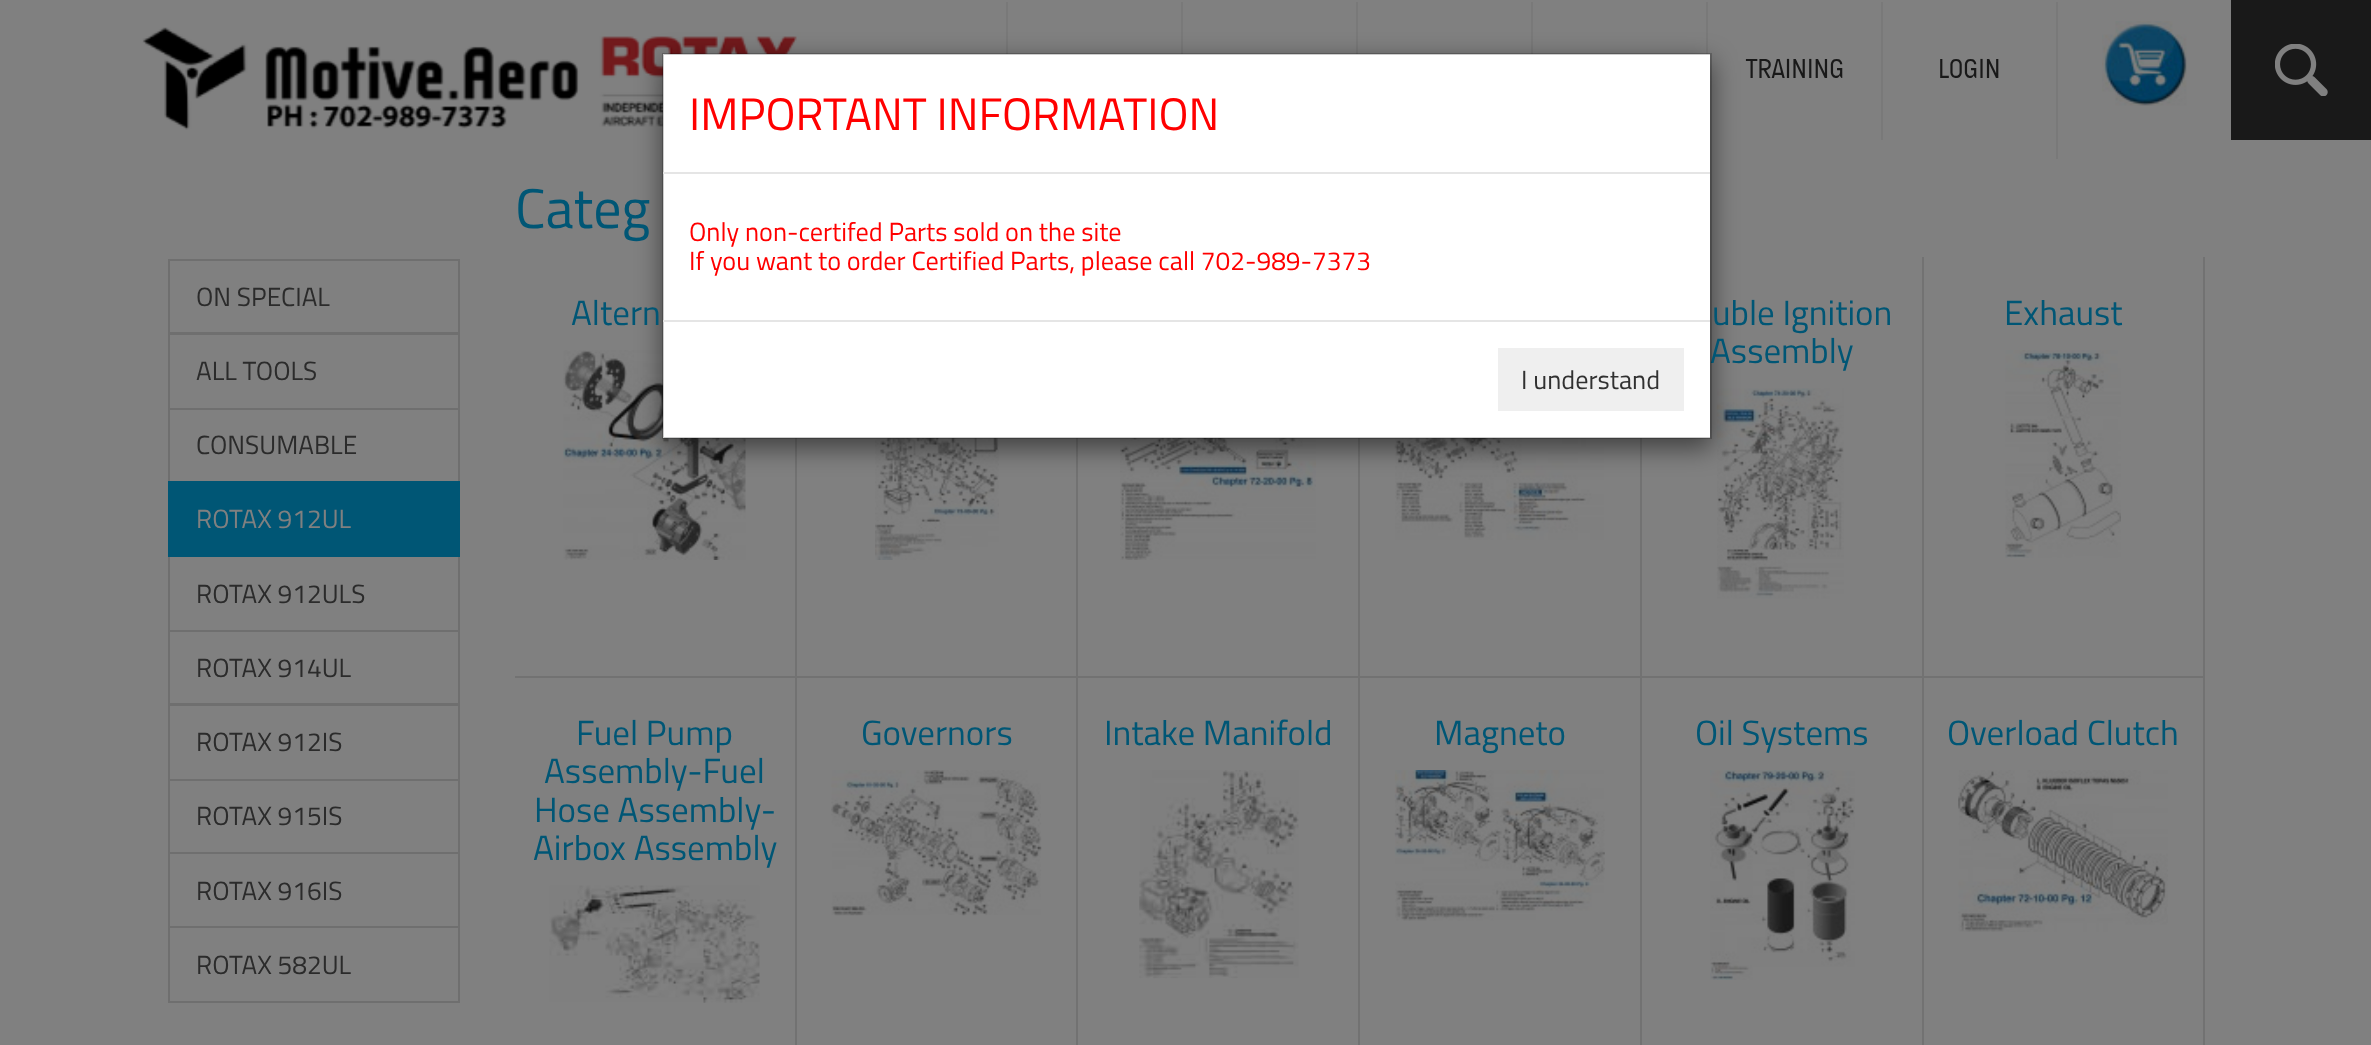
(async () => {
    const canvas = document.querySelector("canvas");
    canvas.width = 2371;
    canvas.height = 1045;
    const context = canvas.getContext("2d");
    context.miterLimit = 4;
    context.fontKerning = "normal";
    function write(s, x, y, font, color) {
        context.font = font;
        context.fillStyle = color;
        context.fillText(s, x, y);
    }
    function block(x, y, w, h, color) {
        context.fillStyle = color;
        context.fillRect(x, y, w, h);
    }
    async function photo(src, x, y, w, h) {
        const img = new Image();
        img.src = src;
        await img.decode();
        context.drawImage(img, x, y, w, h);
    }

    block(0, 0, 2371, 1045, "rgb(128, 128, 128)");
    await photo("media/1.png", 142, 27, 666, 103);
    block(1006, 0, 2, 54, "rgb(121, 121, 121)");
    block(1181, 0, 2, 54, "rgb(121, 121, 121)");
    block(1356, 0, 2, 54, "rgb(121, 121, 121)");
    block(1531, 0, 2, 54, "rgb(121, 121, 121)");
    block(1706, 0, 2, 54, "rgb(121, 121, 121)");
    block(1881, 0, 2, 140, "rgb(121, 121, 121)");
    block(2056, 0, 2, 159, "rgb(121, 121, 121)");
    block(1006, 0, 1052, 2, "rgb(128, 128, 128)");
    block(2231, 0, 140, 140, "rgb(25, 25, 25)");
    await photo("media/2.png", 2275, 44, 53, 52);
    write("TRAINING", 1746, 78, "28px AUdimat", "rgb(25, 25, 25)");
    write("LOGIN", 1938, 78, "28px AUdimat", "rgb(25, 25, 25)");
    await photo("media/3.png", 2102, 21, 85, 85);
    block(795, 438, 2, 239, "rgb(114, 114, 114)");
    await photo("media/4.png", 563, 350, 183, 210);
    await photo("media/5.png", 1716, 388, 128, 211);
    block(1076, 438, 2, 239, "rgb(114, 114, 114)");
    await photo("media/7.png", 875, 438, 124, 122);
    block(1358, 438, 2, 239, "rgb(114, 114, 114)");
    await photo("media/8.png", 1120, 438, 196, 122);
    block(1640, 438, 2, 239, "rgb(114, 114, 114)");
    await photo("media/9.png", 1394, 438, 211, 102);
    context.fillStyle = "rgba(0, 0, 0, 0.5)";
    context.filter = "blur(13px)";
    context.beginPath();
    context.rect(662, 61, 1050, 387);
    context.fill();
    context.filter = "none";
    block(663, 54, 1047, 384, "rgb(255, 255, 255)");
    write("Assembly", 1710, 363, "35px Titillium Web", "rgb(0, 86, 117)");
    context.strokeStyle = "rgba(0, 0, 0, 0.2)";
    context.lineWidth = 2;
    context.strokeRect(663, 54, 1048, 384);
    block(663, 172, 1047, 2, "rgb(229, 229, 229)");
    write("IMPORTANT INFORMATION", 689, 130, "45.5px Titillium Web", "rgb(255, 0, 0)");
    write("Only non-certifed Parts sold on the site", 689, 241, "26.25px Titillium Web", "rgb(255, 0, 0)");
    write("If you want to order Certified Parts, please call 702-989-7373", 689, 270, "26.25px Titillium Web", "rgb(255, 0, 0)");
    block(663, 320, 1047, 2, "rgb(229, 229, 229)");
    block(1498, 348, 186, 63, "rgb(239, 239, 239)");
    write("I understand", 1521, 389, "26.25px Titillium Web", "rgb(49, 49, 49)");
    write("Categ", 515, 228, "56px Titillium Web", "rgb(0, 86, 117)");
    context.strokeStyle = "rgb(111, 111, 111)";
    context.strokeRect(169, 260, 290, 73);
    write("ON SPECIAL", 196, 306, "26.25px Titillium Web", "rgb(43, 43, 43)");
    context.strokeRect(169, 334, 290, 75);
    write("ALL TOOLS", 196, 380, "26.25px Titillium Web", "rgb(43, 43, 43)");
    context.strokeRect(169, 409, 290, 73);
    write("CONSUMABLE", 196, 454, "26.25px Titillium Web", "rgb(43, 43, 43)");
    context.strokeRect(169, 556, 290, 75);
    block(168, 481, 292, 76, "rgb(0, 86, 117)");
    write("ROTAX 912UL", 196, 528, "26.25px Titillium Web", "rgb(128, 128, 128)");
    write("ROTAX 912ULS", 196, 603, "26.25px Titillium Web", "rgb(43, 43, 43)");
    context.strokeRect(169, 631, 290, 73);
    write("ROTAX 914UL", 196, 677, "26.25px Titillium Web", "rgb(43, 43, 43)");
    context.strokeRect(169, 705, 290, 75);
    write("ROTAX 912IS", 196, 751, "26.25px Titillium Web", "rgb(43, 43, 43)");
    context.strokeRect(169, 780, 290, 73);
    write("ROTAX 915IS", 196, 825, "26.25px Titillium Web", "rgb(43, 43, 43)");
    context.strokeRect(169, 853, 290, 74);
    write("ROTAX 916IS", 196, 900, "26.25px Titillium Web", "rgb(43, 43, 43)");
    context.strokeRect(169, 927, 290, 75);
    write("ROTAX 582UL", 196, 974, "26.25px Titillium Web", "rgb(43, 43, 43)");
    block(515, 676, 281, 2, "rgb(114, 114, 114)");
    write("Altern", 571, 325, "35px Titillium Web", "rgb(0, 86, 117)");
    block(1922, 257, 2, 420, "rgb(114, 114, 114)");
    block(1642, 676, 281, 2, "rgb(114, 114, 114)");
    write("uble Ignition", 1712, 325, "35px Titillium Web", "rgb(0, 86, 117)");
    block(2203, 257, 2, 420, "rgb(114, 114, 114)");
    block(1923, 676, 282, 2, "rgb(114, 114, 114)");
    write("Exhaust", 2004, 325, "35px Titillium Web", "rgb(0, 86, 117)");
    await photo("media/6.png", 2005, 350, 116, 208);
    block(796, 676, 282, 2, "rgb(114, 114, 114)");
    block(1078, 676, 282, 2, "rgb(114, 114, 114)");
    block(1360, 676, 282, 2, "rgb(114, 114, 114)");
    block(795, 677, 2, 368, "rgb(114, 114, 114)");
    write("Fuel Pump", 576, 745, "35px Titillium Web", "rgb(0, 86, 117)");
    write("Assembly-Fuel", 544, 783, "35px Titillium Web", "rgb(0, 86, 117)");
    write("Hose Assembly-", 534, 822, "35px Titillium Web", "rgb(0, 86, 117)");
    write("Airbox Assembly", 533, 860, "35px Titillium Web", "rgb(0, 86, 117)");
    await photo("media/10.png", 549, 885, 211, 118);
    block(1076, 677, 2, 368, "rgb(114, 114, 114)");
    write("Governors", 861, 745, "35px Titillium Web", "rgb(0, 86, 117)");
    await photo("media/11.png", 831, 770, 211, 146);
    block(1358, 677, 2, 368, "rgb(114, 114, 114)");
    write("Intake Manifold", 1104, 745, "35px Titillium Web", "rgb(0, 86, 117)");
    await photo("media/12.png", 1139, 770, 160, 209);
    block(1640, 677, 2, 368, "rgb(114, 114, 114)");
    write("Magneto", 1434, 745, "35px Titillium Web", "rgb(0, 86, 117)");
    await photo("media/13.png", 1394, 770, 211, 151);
    block(1922, 677, 2, 368, "rgb(114, 114, 114)");
    write("Oil Systems", 1695, 745, "35px Titillium Web", "rgb(0, 86, 117)");
    await photo("media/14.png", 1710, 770, 145, 210);
    block(2203, 677, 2, 368, "rgb(114, 114, 114)");
    write("Overload Clutch", 1947, 745, "35px Titillium Web", "rgb(0, 86, 117)");
    await photo("media/15.png", 1958, 770, 210, 162);
})();
